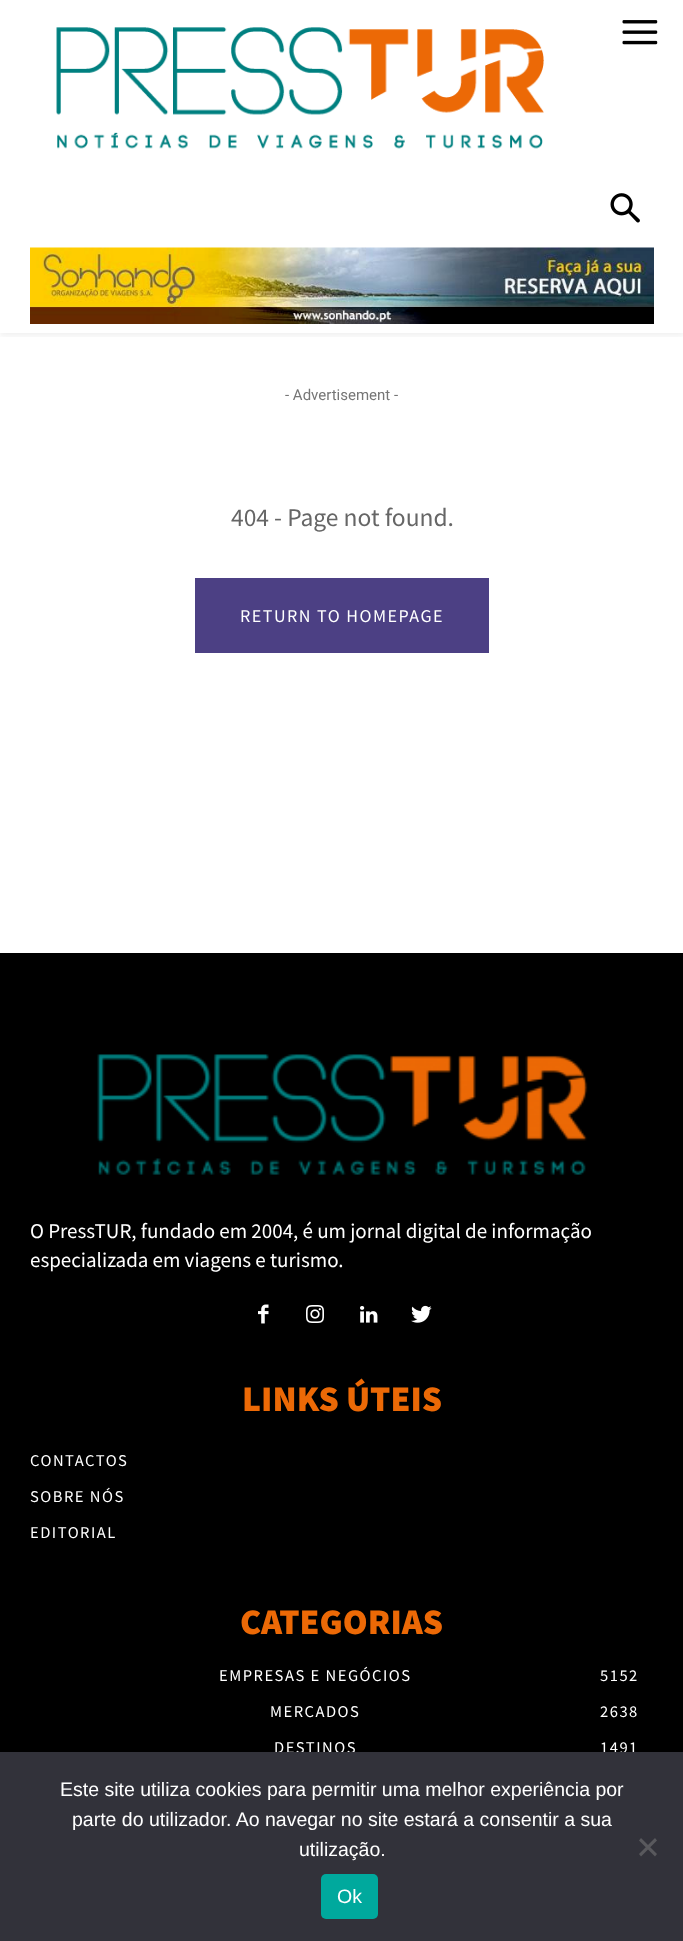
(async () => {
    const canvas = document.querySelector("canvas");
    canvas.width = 683;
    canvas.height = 1941;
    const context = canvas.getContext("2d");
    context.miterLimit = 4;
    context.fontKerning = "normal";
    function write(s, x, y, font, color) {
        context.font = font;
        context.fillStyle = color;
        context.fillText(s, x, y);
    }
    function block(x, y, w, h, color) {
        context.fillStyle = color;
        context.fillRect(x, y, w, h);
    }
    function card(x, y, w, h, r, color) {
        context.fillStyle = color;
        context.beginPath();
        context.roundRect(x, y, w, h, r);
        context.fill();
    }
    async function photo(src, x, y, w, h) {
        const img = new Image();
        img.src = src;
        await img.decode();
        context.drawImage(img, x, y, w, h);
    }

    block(0, 0, 683, 1941, "rgb(255, 255, 255)");
    await photo("media/1.png", 56, 27, 488, 122);
    await photo("media/2.png", 622, 20, 36, 25);
    await photo("media/3.png", 610, 193, 30, 30);
    await photo("media/4.png", 30, 247, 624, 77);
    context.save();
    context.beginPath();
    context.rect(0, 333, 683, 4);
    context.clip();
    context.fillStyle = "rgba(0, 0, 0, 0.06)";
    context.filter = "blur(3px)";
    context.beginPath();
    context.rect(0, 3, 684, 333);
    context.fill();
    context.filter = "none";
    context.restore();
    write("- Advertisement -", 285, 400, "15px Roboto", "rgb(118, 118, 118)");
    write("404 - Page not found.", 231, 526, "25.5px Source Sans Pro", "rgb(102, 102, 102)");
    block(195, 578, 294, 75, "rgb(76, 64, 132)");
    context.letterSpacing = "1.5px";
    write("RETURN TO HOMEPAGE", 240, 622, "18px Source Sans Pro", "rgb(255, 255, 255)");
    block(0, 953, 683, 799, "rgb(0, 0, 0)");
    await photo("media/5.png", 97, 1054, 491, 121);
    context.letterSpacing = "0px";
    write("O PressTUR, fundado em 2004, é um jornal digital de informação", 30, 1238, "21px Source Sans Pro", "rgb(255, 255, 255)");
    write("especializada em viagens e turismo.", 30, 1267, "21px Source Sans Pro", "rgb(255, 255, 255)");
    await photo("media/6.png", 258, 1304, 11, 20);
    await photo("media/7.png", 306, 1305, 18, 18);
    await photo("media/8.png", 360, 1306, 18, 17);
    await photo("media/9.png", 411, 1305, 21, 18);
    write("LINKS ÚTEIS", 242, 1411, "900 36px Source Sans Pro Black", "rgb(236, 105, 6)");
    context.letterSpacing = "1.5px";
    write("CONTACTOS", 30, 1466, "16.5px Source Sans Pro", "rgb(255, 255, 255)");
    write("SOBRE NÓS", 30, 1502, "16.5px Source Sans Pro", "rgb(255, 255, 255)");
    write("EDITORIAL", 30, 1538, "16.5px Source Sans Pro", "rgb(255, 255, 255)");
    context.letterSpacing = "0px";
    write("CATEGORIAS", 240, 1634, "900 36px Source Sans Pro Black", "rgb(236, 105, 6)");
    context.letterSpacing = "1.5px";
    write("EMPRESAS E NEGÓCIOS", 219, 1681, "16.5px Source Sans Pro", "rgb(255, 255, 255)");
    write("5152", 600, 1681, "16.5px Source Sans Pro", "rgb(255, 255, 255)");
    write("MERCADOS", 270, 1717, "16.5px Source Sans Pro", "rgb(255, 255, 255)");
    write("2638", 600, 1717, "16.5px Source Sans Pro", "rgb(255, 255, 255)");
    write("DESTINOS", 274, 1753, "16.5px Source Sans Pro", "rgb(255, 255, 255)");
    write("1491", 600, 1753, "16.5px Source Sans Pro", "rgb(255, 255, 255)");
    block(0, 1752, 683, 189, "rgb(50, 50, 58)");
    context.letterSpacing = "0px";
    write("Este site utiliza cookies para permitir uma melhor experiência por", 60, 1796, "19.5px Liberation Sans", "rgb(255, 255, 255)");
    write("parte do utilizador. Ao navegar no site estará a consentir a sua", 72, 1826, "19.5px Liberation Sans", "rgb(255, 255, 255)");
    write("utilização.", 299, 1856, "19.5px Liberation Sans", "rgb(255, 255, 255)");
    context.fillStyle = "rgb(89, 89, 93)";
    context.beginPath();
    context.moveTo(655, 1838);
    context.lineTo(657, 1840.5);
    context.lineTo(641, 1856.5);
    context.lineTo(639, 1854);
    context.closePath();
    context.fill();
    context.beginPath();
    context.moveTo(639, 1840.5);
    context.lineTo(641, 1838);
    context.lineTo(657, 1854);
    context.lineTo(655, 1856.5);
    context.closePath();
    context.fill();
    card(321, 1874, 57, 45, 5, "rgb(0, 169, 157)");
    write("Ok", 337, 1903, "19.5px Liberation Sans", "rgb(255, 255, 255)");
})();
